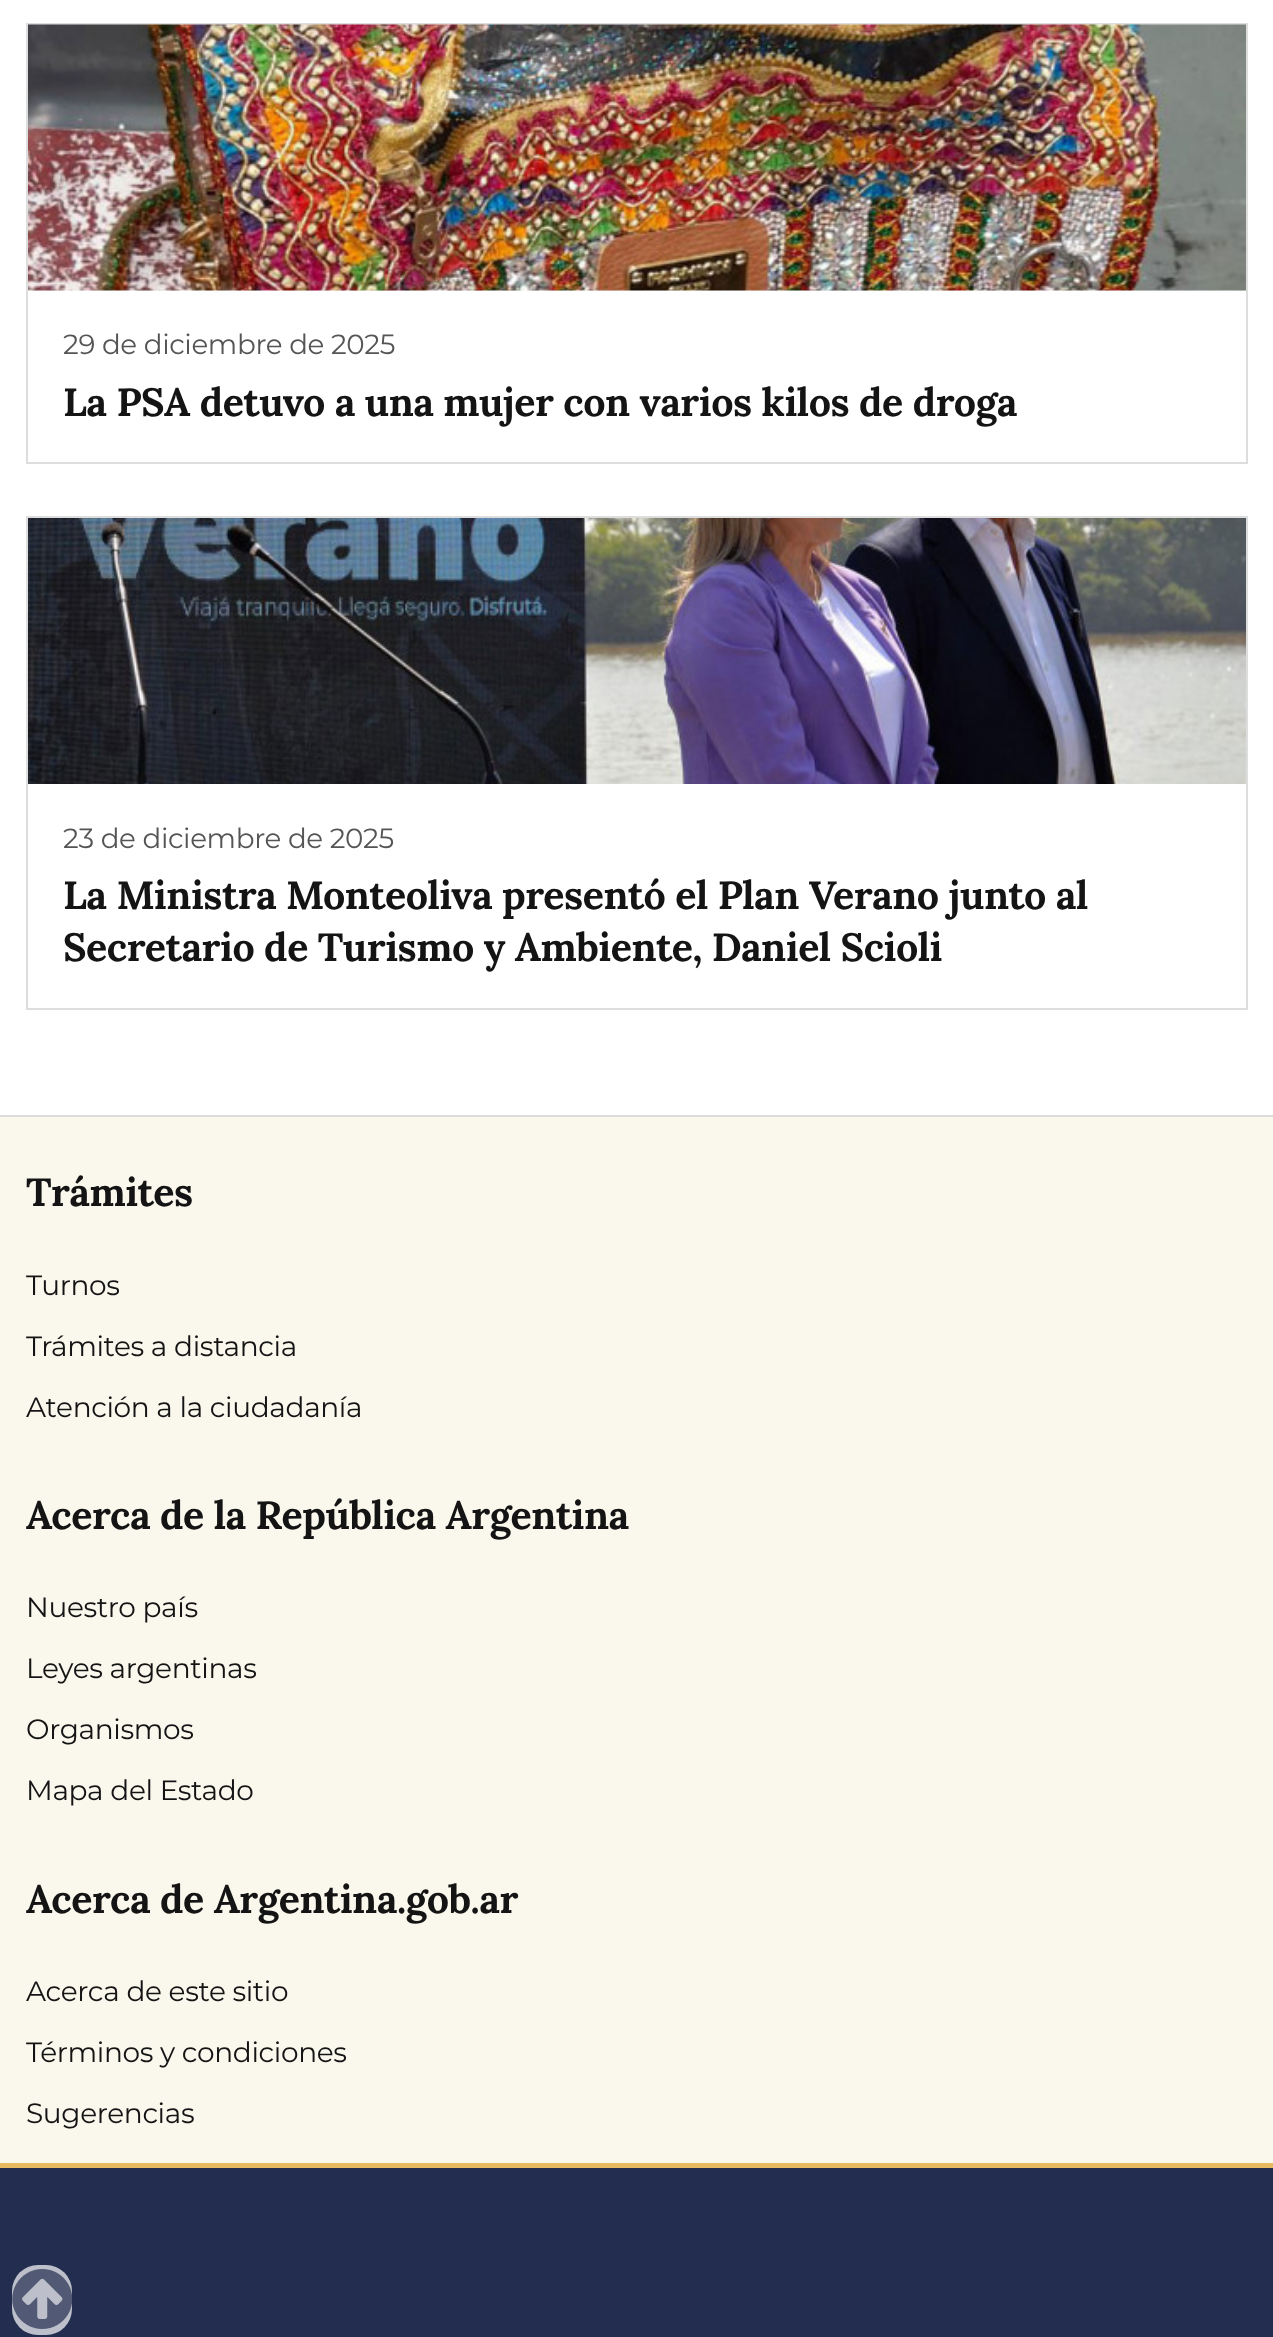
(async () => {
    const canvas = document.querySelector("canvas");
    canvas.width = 1273;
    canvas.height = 2337;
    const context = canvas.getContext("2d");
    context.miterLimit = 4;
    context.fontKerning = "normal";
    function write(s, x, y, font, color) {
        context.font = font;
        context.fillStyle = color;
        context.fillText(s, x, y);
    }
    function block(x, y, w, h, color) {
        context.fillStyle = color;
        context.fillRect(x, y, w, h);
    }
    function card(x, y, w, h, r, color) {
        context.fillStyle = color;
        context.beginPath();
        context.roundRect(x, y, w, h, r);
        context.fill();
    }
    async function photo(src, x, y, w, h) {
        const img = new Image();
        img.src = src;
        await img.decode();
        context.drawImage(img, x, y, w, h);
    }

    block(0, 0, 1273, 2337, "rgb(255, 255, 255)");
    context.strokeStyle = "rgb(221, 221, 221)";
    context.lineWidth = 2;
    context.strokeRect(27, 24, 1220, 439);
    block(28, 290, 1218, 1, "rgb(245, 245, 245)");
    await photo("media/1.png", 28, 24, 1218, 267);
    context.letterSpacing = "-0.35px";
    write("29 de diciembre de 2025", 63, 354, "27.75px Montserrat", "rgb(85, 85, 85)");
    context.letterSpacing = "-0.47px";
    write("La PSA detuvo a una mujer con varios kilos de droga", 63, 416, "bold 39.4px Lora", "rgb(20, 20, 20)");
    context.strokeRect(27, 517, 1220, 492);
    await photo("media/2.png", 28, 518, 1218, 266);
    context.letterSpacing = "-0.35px";
    write("23 de diciembre de 2025", 63, 848, "27.75px Montserrat", "rgb(85, 85, 85)");
    context.letterSpacing = "-0.47px";
    write("La Ministra Monteoliva presentó el Plan Verano junto al", 63, 909, "bold 39.4px Lora", "rgb(20, 20, 20)");
    write("Secretario de Turismo y Ambiente, Daniel Scioli", 63, 961, "bold 39.4px Lora", "rgb(20, 20, 20)");
    block(0, 1117, 1273, 1046, "rgb(250, 248, 237)");
    block(0, 1115, 1273, 2, "rgb(221, 221, 221)");
    write("Trámites", 26, 1206, "bold 39.4px Lora", "rgb(20, 20, 20)");
    context.letterSpacing = "-0.35px";
    write("Turnos", 26, 1295, "28px Montserrat", "rgb(20, 20, 20)");
    write("Trámites a distancia", 26, 1356, "28px Montserrat", "rgb(20, 20, 20)");
    write("Atención a la ciudadanía", 26, 1417, "28px Montserrat", "rgb(20, 20, 20)");
    context.letterSpacing = "-0.47px";
    write("Acerca de la República Argentina", 26, 1529, "bold 39.4px Lora", "rgb(20, 20, 20)");
    context.letterSpacing = "-0.35px";
    write("Nuestro país", 26, 1617, "28px Montserrat", "rgb(20, 20, 20)");
    write("Leyes argentinas", 26, 1678, "28px Montserrat", "rgb(20, 20, 20)");
    write("Organismos", 26, 1739, "28px Montserrat", "rgb(20, 20, 20)");
    write("Mapa del Estado", 26, 1800, "28px Montserrat", "rgb(20, 20, 20)");
    context.letterSpacing = "-0.47px";
    write("Acerca de Argentina.gob.ar", 26, 1913, "bold 39.4px Lora", "rgb(20, 20, 20)");
    context.letterSpacing = "-0.35px";
    write("Acerca de este sitio", 26, 2001, "28px Montserrat", "rgb(20, 20, 20)");
    write("Términos y condiciones", 26, 2062, "28px Montserrat", "rgb(20, 20, 20)");
    write("Sugerencias", 26, 2123, "28px Montserrat", "rgb(20, 20, 20)");
    block(0, 2163, 1273, 5, "rgb(231, 186, 97)");
    block(0, 2168, 1273, 169, "rgb(35, 45, 79)");
    card(12, 2265, 60, 70, 26, "rgb(189, 192, 202)");
    await photo("media/3.png", 12, 2269, 60, 60);
})();
